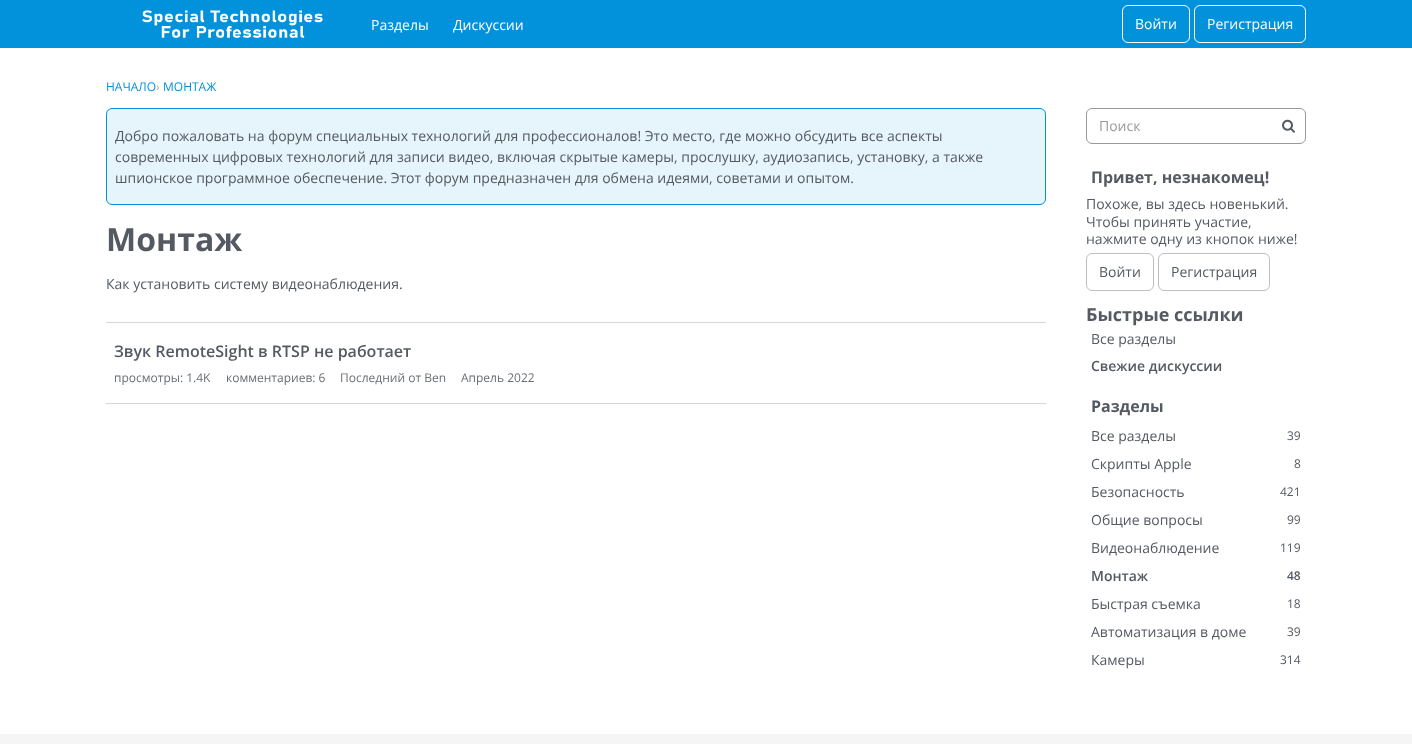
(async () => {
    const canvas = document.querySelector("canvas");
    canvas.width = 1412;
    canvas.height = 744;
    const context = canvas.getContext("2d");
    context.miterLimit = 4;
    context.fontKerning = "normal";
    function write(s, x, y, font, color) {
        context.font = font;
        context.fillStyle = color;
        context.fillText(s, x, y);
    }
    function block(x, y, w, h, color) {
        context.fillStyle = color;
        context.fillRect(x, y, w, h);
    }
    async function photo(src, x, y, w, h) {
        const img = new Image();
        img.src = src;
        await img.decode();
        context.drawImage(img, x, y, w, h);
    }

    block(0, 0, 1412, 744, "rgb(255, 255, 255)");
    block(0, 0, 1412, 48, "rgb(2, 145, 219)");
    await photo("media/1.png", 142, 10, 181, 28);
    write("Разделы", 371, 30, "14px Open Sans", "rgb(255, 255, 255)");
    write("Дискуссии", 453, 30, "14px Open Sans", "rgb(255, 255, 255)");
    context.beginPath();
    context.roundRect(1122.5, 5.5, 67, 37, 5.5);
    context.strokeStyle = "rgb(255, 255, 255)";
    context.stroke();
    write("Войти", 1135, 29, "14px Open Sans", "rgb(255, 255, 255)");
    context.beginPath();
    context.roundRect(1194.5, 5.5, 111, 37, 5.5);
    context.stroke();
    write("Регистрация", 1207, 29, "14px Open Sans", "rgb(255, 255, 255)");
    write("НАЧАЛО", 106, 91, "12px Open Sans", "rgb(2, 145, 219)");
    write("›", 156, 91, "12px Open Sans", "rgb(170, 173, 177)");
    write("МОНТАЖ", 163, 91, "12px Open Sans", "rgb(2, 145, 219)");
    context.fillStyle = "rgb(230, 244, 251)";
    context.beginPath();
    context.roundRect(106.5, 108.5, 939, 96, 5.5);
    context.fill();
    context.strokeStyle = "rgb(2, 145, 219)";
    context.stroke();
    write("Добро пожаловать на форум специальных технологий для профессионалов! Это место, где можно обсудить все аспекты", 115, 141, "14px Open Sans", "rgb(85, 90, 98)");
    write("современных цифровых технологий для записи видео, включая скрытые камеры, прослушку, аудиозапись, установку, а также", 115, 162, "14px Open Sans", "rgb(85, 90, 98)");
    write("шпионское программное обеспечение. Этот форум предназначен для обмена идеями, советами и опытом.", 115, 183, "14px Open Sans", "rgb(85, 90, 98)");
    write("Монтаж", 106, 251, "bold 32px Open Sans", "rgb(85, 90, 98)");
    write("Как установить систему видеонаблюдения.", 106, 289, "14px Open Sans", "rgb(85, 90, 98)");
    block(106, 322, 940, 1, "rgb(214, 215, 217)");
    block(106, 403, 940, 1, "rgb(214, 215, 217)");
    write("Звук RemoteSight в RTSP не работает", 114, 357, "600 16px Open Sans", "rgb(85, 90, 98)");
    write("просмотры: 1.4K", 114, 382, "12px Open Sans", "rgb(105, 110, 117)");
    write("комментариев: 6", 226, 382, "12px Open Sans", "rgb(105, 110, 117)");
    write("Последний от Ben", 340, 382, "12px Open Sans", "rgb(105, 110, 117)");
    write("Апрель 2022", 461, 382, "12px Open Sans", "rgb(105, 110, 117)");
    context.beginPath();
    context.roundRect(1086.5, 108.5, 219, 35, 5.5);
    context.strokeStyle = "rgb(153, 153, 153)";
    context.stroke();
    write("Поиск", 1099, 131, "14px Open Sans", "rgb(153, 153, 153)");
    await photo("media/2.png", 1282, 119, 13, 14);
    write("Привет, незнакомец!", 1091, 183, "bold 16px Open Sans", "rgb(85, 90, 98)");
    write("Похоже, вы здесь новенький.", 1086, 209, "14px Open Sans", "rgb(85, 90, 98)");
    write("Чтобы принять участие,", 1086, 227, "14px Open Sans", "rgb(85, 90, 98)");
    write("нажмите одну из кнопок ниже!", 1086, 244, "14px Open Sans", "rgb(85, 90, 98)");
    context.beginPath();
    context.roundRect(1086.5, 253.5, 67, 37, 5.5);
    context.strokeStyle = "rgb(188, 190, 193)";
    context.stroke();
    write("Войти", 1099, 277, "14px Open Sans", "rgb(85, 90, 98)");
    context.beginPath();
    context.roundRect(1158.5, 253.5, 111, 37, 5.5);
    context.stroke();
    write("Регистрация", 1171, 277, "14px Open Sans", "rgb(85, 90, 98)");
    write("Быстрые ссылки", 1086, 321, "bold 18px Open Sans", "rgb(85, 90, 98)");
    write("Все разделы", 1091, 344, "14px Open Sans", "rgb(85, 90, 98)");
    write("Свежие дискуссии", 1091, 371, "600 14px Open Sans", "rgb(85, 90, 98)");
    write("Разделы", 1091, 412, "bold 16px Open Sans", "rgb(85, 90, 98)");
    write("Все разделы", 1091, 441, "14px Open Sans", "rgb(85, 90, 98)");
    write("39", 1287, 440, "12px Open Sans", "rgb(85, 90, 98)");
    write("Скрипты Apple", 1091, 469, "14px Open Sans", "rgb(85, 90, 98)");
    write("8", 1294, 468, "12px Open Sans", "rgb(85, 90, 98)");
    write("Безопасность", 1091, 497, "14px Open Sans", "rgb(85, 90, 98)");
    write("421", 1280, 496, "12px Open Sans", "rgb(85, 90, 98)");
    write("Общие вопросы", 1091, 525, "14px Open Sans", "rgb(85, 90, 98)");
    write("99", 1287, 524, "12px Open Sans", "rgb(85, 90, 98)");
    write("Видеонаблюдение", 1091, 553, "14px Open Sans", "rgb(85, 90, 98)");
    write("119", 1280, 552, "12px Open Sans", "rgb(85, 90, 98)");
    write("Монтаж", 1091, 581, "600 14px Open Sans", "rgb(85, 90, 98)");
    write("48", 1287, 580, "600 12px Open Sans", "rgb(85, 90, 98)");
    write("Быстрая съемка", 1091, 609, "14px Open Sans", "rgb(85, 90, 98)");
    write("18", 1287, 608, "12px Open Sans", "rgb(85, 90, 98)");
    write("Автоматизация в доме", 1091, 637, "14px Open Sans", "rgb(85, 90, 98)");
    write("39", 1287, 636, "12px Open Sans", "rgb(85, 90, 98)");
    write("Камеры", 1091, 665, "14px Open Sans", "rgb(85, 90, 98)");
    write("314", 1280, 664, "12px Open Sans", "rgb(85, 90, 98)");
    block(0, 734, 1412, 10, "rgb(245, 245, 246)");
})();
